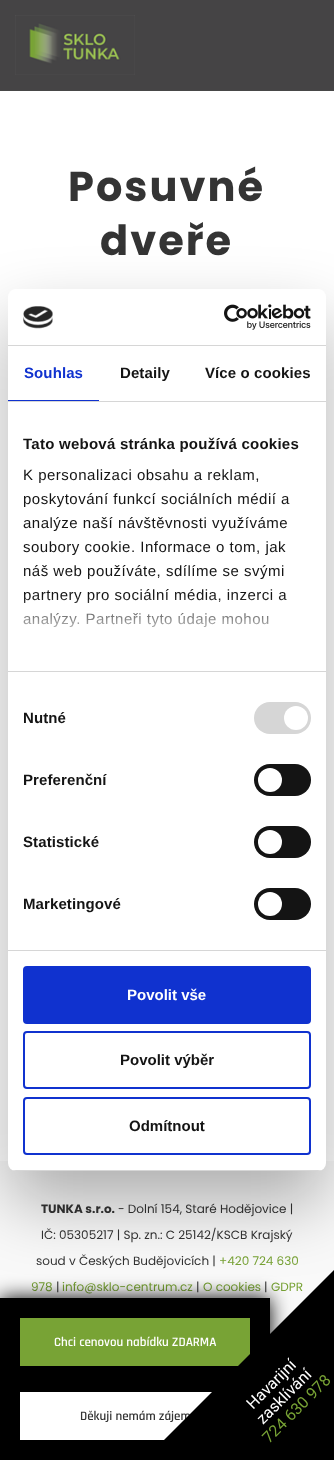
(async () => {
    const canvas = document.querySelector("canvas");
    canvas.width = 334;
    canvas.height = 1460;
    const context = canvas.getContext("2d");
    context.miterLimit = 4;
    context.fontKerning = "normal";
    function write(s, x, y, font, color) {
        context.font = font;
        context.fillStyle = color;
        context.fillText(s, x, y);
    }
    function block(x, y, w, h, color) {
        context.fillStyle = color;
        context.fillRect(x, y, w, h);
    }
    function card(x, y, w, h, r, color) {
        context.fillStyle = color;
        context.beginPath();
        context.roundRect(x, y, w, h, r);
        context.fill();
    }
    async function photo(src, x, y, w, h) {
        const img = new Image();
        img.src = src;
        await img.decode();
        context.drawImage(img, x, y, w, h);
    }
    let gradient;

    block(0, 0, 334, 1460, "rgb(255, 255, 255)");
    block(0, 0, 334, 90, "rgb(69, 68, 69)");
    block(0, 90, 334, 1, "rgb(72, 72, 72)");
    await photo("media/1.png", 15, 15, 120, 60);
    context.letterSpacing = "2px";
    write("Posuvné", 68, 201, "bold 41.5px Poppins", "rgb(52, 52, 52)");
    write("dveře", 100, 255, "bold 41.5px Poppins", "rgb(52, 52, 52)");
    block(0, 1161, 334, 173, "rgb(249, 249, 249)");
    context.letterSpacing = "0px";
    write("TUNKA s.r.o.", 41, 1213, "bold 12px Poppins", "rgb(52, 52, 52)");
    write("- Dolní 154, Staré Hodějovice |", 118, 1213, "12px Poppins", "rgb(52, 52, 52)");
    write("IČ: 05305217 | Sp. zn.: C 25142/KSCB Krajský", 41, 1239, "12px Poppins", "rgb(52, 52, 52)");
    write("soud v Českých Budějovicích |", 36, 1265, "12px Poppins", "rgb(52, 52, 52)");
    write("+420 724 630", 219, 1265, "12px Poppins", "rgb(120, 163, 53)");
    write("978", 31, 1291, "12px Poppins", "rgb(120, 163, 53)");
    write("|", 56, 1291, "12px Poppins", "rgb(52, 52, 52)");
    write("info@sklo-centrum.cz", 62, 1291, "12px Poppins", "rgb(120, 163, 53)");
    write("|", 196, 1291, "12px Poppins", "rgb(52, 52, 52)");
    write("O cookies", 203, 1291, "12px Poppins", "rgb(120, 163, 53)");
    write("|", 264, 1291, "12px Poppins", "rgb(52, 52, 52)");
    write("GDPR", 271, 1291, "12px Poppins", "rgb(120, 163, 53)");
    context.fillStyle = "rgb(0, 0, 0)";
    context.filter = "blur(10px)";
    context.beginPath();
    context.rect(0, 1298, 270, 162);
    context.fill();
    context.filter = "none";
    block(0, 1298, 270, 162, "rgb(0, 0, 0)");
    block(20, 1318, 230, 48, "rgb(120, 163, 53)");
    write("Chci cenovou nabídku ZDARMA", 54, 1346, "600 13px Rajdhani", "rgb(255, 255, 255)");
    block(20, 1392, 192, 48, "rgb(255, 255, 255)");
    write("Děkuji nemám zájem", 80, 1420, "600 13px Rajdhani", "rgb(52, 52, 52)");
    context.fillStyle = "rgb(0, 0, 0)";
    context.beginPath();
    context.moveTo(334, 1460);
    context.lineTo(144, 1460);
    context.lineTo(334, 1270);
    context.closePath();
    context.fill();
    context.fillStyle = "rgba(0, 0, 0, 0.3)";
    context.filter = "blur(34px)";
    context.beginPath();
    context.roundRect(8, 321, 318, 882, 8);
    context.fill();
    context.filter = "none";
    card(8, 289, 318, 882, 8, "rgb(255, 255, 255)");
    block(8, 345, 318, 1, "rgb(214, 214, 214)");
    await photo("media/2.png", 23, 306, 30, 23);
    await photo("media/3.png", 224, 304, 87, 26);
    block(8, 401, 318, 1, "rgb(214, 214, 214)");
    block(8, 400, 91, 1, "rgb(16, 50, 207)");
    context.letterSpacing = "0.1px";
    write("Souhlas", 24, 378, "bold 15px Liberation Sans", "rgb(16, 50, 207)");
    write("Detaily", 120, 378, "bold 15px Liberation Sans", "rgb(20, 20, 20)");
    write("Více o cookies", 205, 378, "bold 15px Liberation Sans", "rgb(20, 20, 20)");
    block(8, 671, 318, 1, "rgb(214, 214, 214)");
    context.letterSpacing = "0.25px";
    write("Tato webová stránka používá cookies", 23, 449, "bold 15px Liberation Sans", "rgb(20, 20, 20)");
    context.letterSpacing = "0.5px";
    write("K personalizaci obsahu a reklam,", 23, 480, "15px Liberation Sans", "rgb(20, 20, 20)");
    write("poskytování funkcí sociálních médií a", 23, 504, "15px Liberation Sans", "rgb(20, 20, 20)");
    write("analýze naší návštěvnosti využíváme", 23, 528, "15px Liberation Sans", "rgb(20, 20, 20)");
    write("soubory cookie. Informace o tom, jak", 23, 552, "15px Liberation Sans", "rgb(20, 20, 20)");
    write("náš web používáte, sdílíme se svými", 23, 576, "15px Liberation Sans", "rgb(20, 20, 20)");
    write("partnery pro sociální média, inzerci a", 23, 600, "15px Liberation Sans", "rgb(20, 20, 20)");
    write("analýzy. Partneři tyto údaje mohou", 23, 624, "15px Liberation Sans", "rgb(20, 20, 20)");
    gradient = context.createLinearGradient(161, 671, 161, 596);
    gradient.addColorStop(0, "rgb(255, 255, 255)");
    gradient.addColorStop(0.5, "rgba(255, 255, 255, 0.8)");
    gradient.addColorStop(1, "rgba(255, 255, 255, 0)");
    context.fillStyle = gradient;
    context.fillRect(23, 597, 264, 31);
    block(8, 950, 318, 1, "rgb(214, 214, 214)");
    context.letterSpacing = "0.1px";
    write("Nutné", 23, 723, "bold 15px Liberation Sans", "rgb(20, 20, 20)");
    card(254, 702, 57, 32, 16, "rgb(214, 214, 214)");
    context.fillStyle = "rgb(255, 255, 255)";
    context.beginPath();
    context.arc(296, 718, 12, 0, Math.PI * 2);
    context.fill();
    write("Preferenční", 23, 785, "bold 15px Liberation Sans", "rgb(20, 20, 20)");
    card(254, 764, 57, 32, 16, "rgb(20, 20, 20)");
    context.fillStyle = "rgb(255, 255, 255)";
    context.beginPath();
    context.arc(270, 780, 12, 0, Math.PI * 2);
    context.fill();
    write("Statistické", 23, 847, "bold 15px Liberation Sans", "rgb(20, 20, 20)");
    card(254, 826, 57, 32, 16, "rgb(20, 20, 20)");
    context.fillStyle = "rgb(255, 255, 255)";
    context.beginPath();
    context.arc(270, 842, 12, 0, Math.PI * 2);
    context.fill();
    write("Marketingové", 23, 909, "bold 15px Liberation Sans", "rgb(20, 20, 20)");
    card(254, 888, 57, 32, 16, "rgb(20, 20, 20)");
    context.fillStyle = "rgb(255, 255, 255)";
    context.beginPath();
    context.arc(270, 904, 12, 0, Math.PI * 2);
    context.fill();
    context.save();
    context.beginPath();
    context.roundRect(8, 289, 318, 882, 8);
    context.clip();
    block(8, 1170, 318, 1, "rgb(214, 214, 214)");
    context.restore();
    context.fillStyle = "rgb(16, 50, 207)";
    context.beginPath();
    context.roundRect(24, 967, 286, 56, 3);
    context.fill();
    context.strokeStyle = "rgb(16, 50, 207)";
    context.lineWidth = 2;
    context.stroke();
    context.letterSpacing = "0px";
    write("Povolit vše", 127, 1000, "bold 15px Liberation Sans", "rgb(255, 255, 255)");
    context.beginPath();
    context.roundRect(24, 1032, 286, 56, 3);
    context.stroke();
    write("Povolit výběr", 120, 1065, "bold 15px Liberation Sans", "rgb(20, 20, 20)");
    context.beginPath();
    context.roundRect(24, 1098, 286, 56, 3);
    context.stroke();
    write("Odmítnout", 129, 1131, "bold 15px Liberation Sans", "rgb(20, 20, 20)");
    context.font = "16px Roboto";
    context.fillStyle = "rgb(255, 255, 255)";
    context.save();
    context.translate(253, 1410);
    context.rotate(-45 * Math.PI / 180);
    context.fillText("Havarijní", 0, 0);
    context.restore();
    context.save();
    context.translate(263, 1425);
    context.rotate(-45 * Math.PI / 180);
    context.fillText("zasklívání", 0, 0);
    context.restore();
    context.fillStyle = "rgb(120, 163, 53)";
    context.save();
    context.translate(269, 1444);
    context.rotate(-45 * Math.PI / 180);
    context.fillText("724 630 978", 0, 0);
    context.restore();
})();
